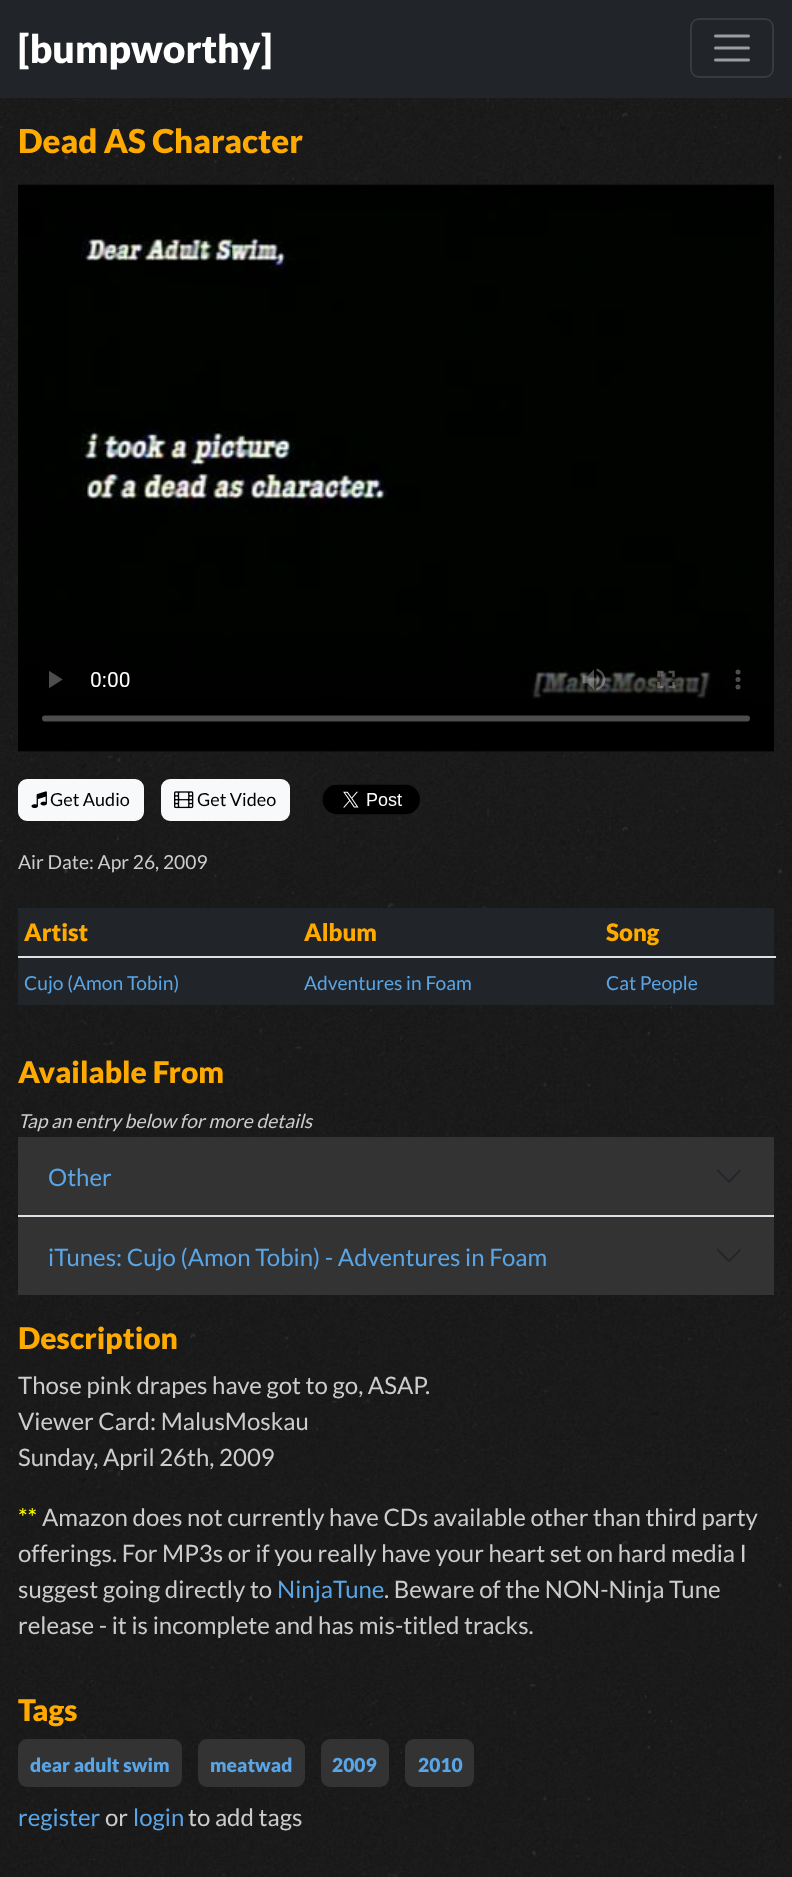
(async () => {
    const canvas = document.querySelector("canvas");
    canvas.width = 792;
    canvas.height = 1877;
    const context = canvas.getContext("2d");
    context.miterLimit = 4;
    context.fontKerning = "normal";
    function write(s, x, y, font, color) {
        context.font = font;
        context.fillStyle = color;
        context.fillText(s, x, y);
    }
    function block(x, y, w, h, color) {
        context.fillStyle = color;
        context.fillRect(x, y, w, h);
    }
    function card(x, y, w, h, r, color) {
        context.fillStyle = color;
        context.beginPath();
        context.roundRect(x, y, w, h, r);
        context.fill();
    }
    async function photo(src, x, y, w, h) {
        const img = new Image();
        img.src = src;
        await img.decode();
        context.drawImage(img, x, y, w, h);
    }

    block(0, 0, 792, 1877, "rgb(255, 255, 255)");
    await photo("media/1.png", 0, 98, 792, 1779);
    block(0, 0, 792, 98, "rgb(33, 37, 41)");
    write("[bumpworthy]", 18, 63, "900 39px Lato", "rgb(255, 255, 255)");
    context.beginPath();
    context.roundRect(691, 19, 82, 58, 8);
    context.strokeStyle = "rgb(55, 59, 62)";
    context.lineWidth = 2;
    context.stroke();
    context.beginPath();
    context.moveTo(715.5, 36);
    context.lineTo(748.5, 36);
    context.moveTo(715.5, 48);
    context.lineTo(748.5, 48);
    context.moveTo(715.5, 60);
    context.lineTo(748.5, 60);
    context.strokeStyle = "rgb(155, 157, 159)";
    context.lineWidth = 3;
    context.lineCap = "round";
    context.stroke();
    write("Dead AS Character", 18, 153, "900 33px Lato", "rgb(255, 170, 0)");
    await photo("media/2.png", 18, 184, 756, 568);
    context.fillStyle = "rgb(248, 249, 250)";
    context.beginPath();
    context.roundRect(19, 780, 124, 40, 8);
    context.fill();
    context.strokeStyle = "rgb(248, 249, 250)";
    context.lineWidth = 2;
    context.stroke();
    await photo("media/3.png", 31, 791, 16, 18);
    write("Get Audio", 50, 806, "18px Lato", "rgb(0, 0, 0)");
    context.fillStyle = "rgb(248, 249, 250)";
    context.beginPath();
    context.roundRect(162, 780, 127, 40, 8);
    context.fill();
    context.stroke();
    await photo("media/4.png", 174, 791, 20, 18);
    write("Get Video", 197, 806, "18px Lato", "rgb(0, 0, 0)");
    await photo("media/5.png", 322, 784, 98, 31);
    write("Air Date: Apr 26, 2009", 18, 869, "19.25px Lato", "rgb(204, 204, 204)");
    block(18, 956, 758, 2, "rgb(222, 226, 230)");
    block(18, 908, 756, 48, "rgb(33, 37, 41)");
    write("Artist", 24, 941, "900 24px Lato", "rgb(255, 170, 0)");
    write("Album", 304, 941, "900 24px Lato", "rgb(255, 170, 0)");
    write("Song", 606, 941, "900 24px Lato", "rgb(255, 170, 0)");
    block(18, 958, 756, 47, "rgb(33, 37, 41)");
    write("Cujo (Amon Tobin)", 24, 990, "19.25px Lato", "rgb(89, 165, 229)");
    write("Adventures in Foam", 304, 990, "19.25px Lato", "rgb(89, 165, 229)");
    write("Cat People", 606, 990, "19.25px Lato", "rgb(89, 165, 229)");
    write("Available From", 18, 1083, "900 30px Lato", "rgb(255, 170, 0)");
    write("Tap an entry below for more details", 18, 1128, "italic 19.25px Lato", "rgb(204, 204, 204)");
    block(18, 1215, 756, 2, "rgb(222, 226, 230)");
    block(18, 1137, 756, 78, "rgb(51, 51, 51)");
    write("Other", 48, 1186, "24px Lato", "rgb(89, 165, 229)");
    await photo("media/6.png", 717, 1169, 24, 14);
    block(18, 1217, 756, 78, "rgb(51, 51, 51)");
    write("iTunes: Cujo (Amon Tobin) - Adventures in Foam", 48, 1266, "24px Lato", "rgb(89, 165, 229)");
    await photo("media/7.png", 717, 1249, 24, 13);
    write("Description", 18, 1349, "900 30px Lato", "rgb(255, 170, 0)");
    write("Those pink drapes have got to go, ASAP.", 18, 1394, "24px Lato", "rgb(204, 204, 204)");
    write("Viewer Card: MalusMoskau", 18, 1430, "24px Lato", "rgb(204, 204, 204)");
    write("Sunday, April 26th, 2009", 18, 1466, "24px Lato", "rgb(204, 204, 204)");
    write("**", 18, 1526, "24px Lato", "rgb(255, 255, 0)");
    write("Amazon does not currently have CDs available other than third party", 42, 1526, "24px Lato", "rgb(204, 204, 204)");
    write("offerings. For MP3s or if you really have your heart set on hard media I", 18, 1562, "24px Lato", "rgb(204, 204, 204)");
    write("suggest going directly to", 18, 1598, "24px Lato", "rgb(204, 204, 204)");
    write("NinjaTune", 277, 1598, "24px Lato", "rgb(89, 165, 229)");
    write(". Beware of the NON-Ninja Tune", 384, 1598, "24px Lato", "rgb(204, 204, 204)");
    write("release - it is incomplete and has mis-titled tracks.", 18, 1634, "24px Lato", "rgb(204, 204, 204)");
    write("Tags", 18, 1721, "900 30px Lato", "rgb(255, 170, 0)");
    card(18, 1739, 164, 48, 9, "rgb(51, 51, 51)");
    write("dear adult swim", 30, 1772, "900 19.25px Lato", "rgb(89, 165, 229)");
    card(198, 1739, 107, 48, 9, "rgb(51, 51, 51)");
    write("meatwad", 210, 1772, "900 19.25px Lato", "rgb(89, 165, 229)");
    card(321, 1739, 68, 48, 9, "rgb(51, 51, 51)");
    write("2009", 332, 1772, "900 19.25px Lato", "rgb(89, 165, 229)");
    card(405, 1739, 69, 48, 9, "rgb(51, 51, 51)");
    write("2010", 418, 1772, "900 19.25px Lato", "rgb(89, 165, 229)");
    write("register", 18, 1826, "24px Lato", "rgb(89, 165, 229)");
    write("or", 105, 1826, "24px Lato", "rgb(204, 204, 204)");
    write("login", 133, 1826, "24px Lato", "rgb(89, 165, 229)");
    write("to add tags", 188, 1826, "24px Lato", "rgb(204, 204, 204)");
})();
